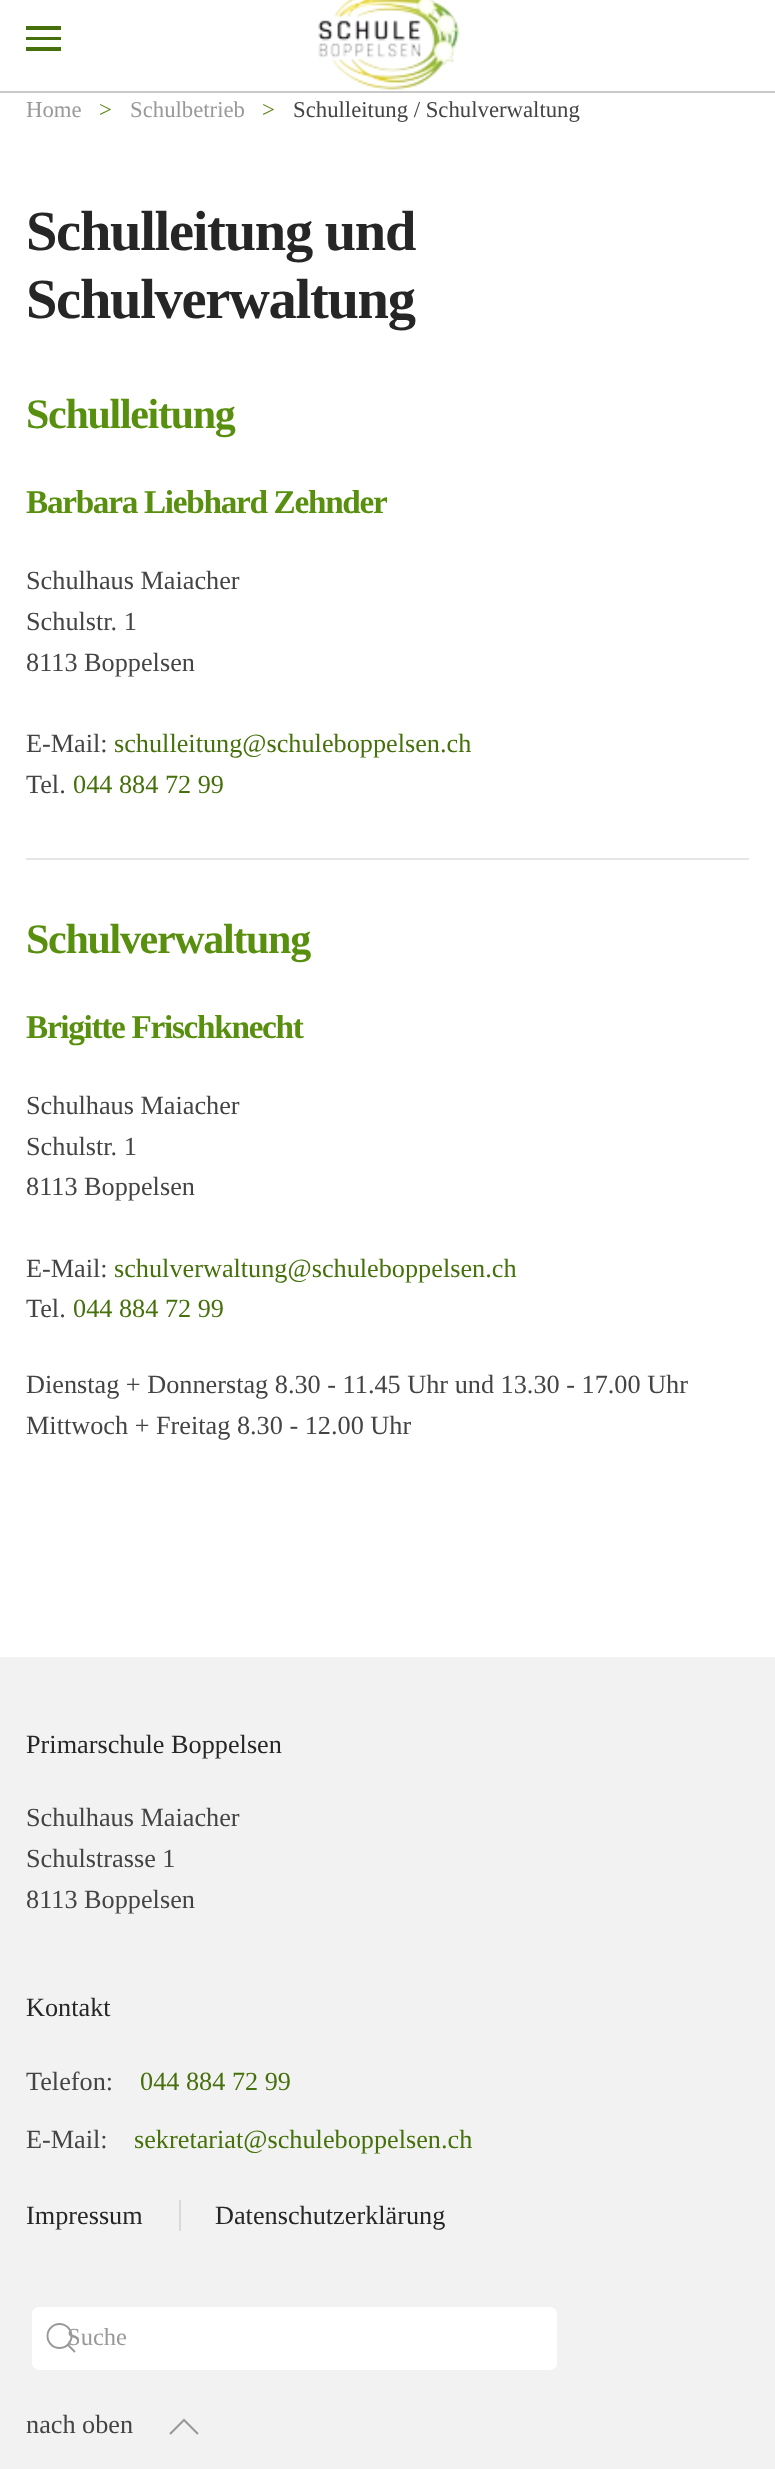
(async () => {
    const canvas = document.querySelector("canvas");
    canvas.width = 775;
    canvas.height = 2469;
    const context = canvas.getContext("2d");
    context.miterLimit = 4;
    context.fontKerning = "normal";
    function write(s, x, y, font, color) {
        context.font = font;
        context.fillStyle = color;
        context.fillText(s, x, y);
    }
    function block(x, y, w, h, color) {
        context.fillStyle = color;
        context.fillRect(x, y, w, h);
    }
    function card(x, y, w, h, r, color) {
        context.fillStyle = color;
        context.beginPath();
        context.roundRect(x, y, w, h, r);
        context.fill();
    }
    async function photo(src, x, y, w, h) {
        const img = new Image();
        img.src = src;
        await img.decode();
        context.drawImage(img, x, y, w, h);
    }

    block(0, 0, 775, 2469, "rgb(255, 255, 255)");
    block(0, 91, 775, 2, "rgb(201, 201, 201)");
    block(26, 26, 35, 4, "rgb(69, 112, 11)");
    block(26, 37, 35, 3, "rgb(69, 112, 11)");
    block(26, 47, 35, 4, "rgb(69, 112, 11)");
    await photo("media/1.png", 318, 0, 141, 90);
    write("Home", 26, 117, "22.75px Liberation Serif", "rgb(153, 153, 153)");
    write(">", 99, 117, "22.75px Liberation Serif", "rgb(81, 128, 15)");
    write("Schulbetrieb", 130, 117, "22.75px Liberation Serif", "rgb(153, 153, 153)");
    write(">", 262, 117, "22.75px Liberation Serif", "rgb(81, 128, 15)");
    write("Schulleitung / Schulverwaltung", 293, 117, "22.75px Liberation Serif", "rgb(68, 68, 68)");
    context.letterSpacing = "-1.3px";
    write("Schulleitung und", 26, 250, "bold 56.5px Liberation Serif", "rgb(38, 38, 38)");
    write("Schulverwaltung", 26, 318, "bold 56.5px Liberation Serif", "rgb(38, 38, 38)");
    write("Schulleitung", 26, 428, "bold 42px Liberation Serif", "rgb(88, 143, 14)");
    write("Barbara Liebhard Zehnder", 26, 513, "bold 33.25px Liberation Serif", "rgb(88, 143, 14)");
    context.letterSpacing = "0px";
    write("Schulhaus Maiacher", 26, 589, "26.25px Liberation Serif", "rgb(68, 68, 68)");
    write("Schulstr. 1", 26, 630, "26.25px Liberation Serif", "rgb(68, 68, 68)");
    write("8113 Boppelsen", 26, 671, "26.25px Liberation Serif", "rgb(68, 68, 68)");
    write("E-Mail:", 26, 752, "26.25px Liberation Serif", "rgb(68, 68, 68)");
    write("schulleitung@schuleboppelsen.ch", 114, 752, "26.25px Liberation Serif", "rgb(69, 112, 11)");
    write("Tel.", 26, 793, "26.25px Liberation Serif", "rgb(68, 68, 68)");
    write("044 884 72 99", 73, 793, "26.25px Liberation Serif", "rgb(69, 112, 11)");
    block(26, 858, 723, 2, "rgb(230, 230, 230)");
    context.letterSpacing = "-1.3px";
    write("Schulverwaltung", 26, 953, "bold 42px Liberation Serif", "rgb(88, 143, 14)");
    write("Brigitte Frischknecht", 26, 1038, "bold 33.25px Liberation Serif", "rgb(88, 143, 14)");
    context.letterSpacing = "0px";
    write("Schulhaus Maiacher", 26, 1114, "26.25px Liberation Serif", "rgb(68, 68, 68)");
    write("Schulstr. 1", 26, 1155, "26.25px Liberation Serif", "rgb(68, 68, 68)");
    write("8113 Boppelsen", 26, 1195, "26.25px Liberation Serif", "rgb(68, 68, 68)");
    write("E-Mail:", 26, 1277, "26.25px Liberation Serif", "rgb(68, 68, 68)");
    write("schulverwaltung@schuleboppelsen.ch", 114, 1277, "26.25px Liberation Serif", "rgb(69, 112, 11)");
    write("Tel.", 26, 1317, "26.25px Liberation Serif", "rgb(68, 68, 68)");
    write("044 884 72 99", 73, 1317, "26.25px Liberation Serif", "rgb(69, 112, 11)");
    write("Dienstag + Donnerstag 8.30 - 11.45 Uhr und 13.30 - 17.00 Uhr", 26, 1393, "26.25px Liberation Serif", "rgb(68, 68, 68)");
    write("Mittwoch + Freitag 8.30 - 12.00 Uhr", 26, 1434, "26.25px Liberation Serif", "rgb(68, 68, 68)");
    block(0, 1657, 775, 812, "rgb(243, 242, 242)");
    write("Primarschule Boppelsen", 26, 1753, "26.25px Liberation Serif", "rgb(38, 38, 38)");
    write("Schulhaus Maiacher", 26, 1826, "26.25px Liberation Serif", "rgb(68, 68, 68)");
    write("Schulstrasse 1", 26, 1867, "26.25px Liberation Serif", "rgb(68, 68, 68)");
    write("8113 Boppelsen", 26, 1908, "26.25px Liberation Serif", "rgb(68, 68, 68)");
    write("Kontakt", 26, 2016, "26.25px Liberation Serif", "rgb(38, 38, 38)");
    write("Telefon:", 26, 2090, "26.25px Liberation Serif", "rgb(68, 68, 68)");
    write("044 884 72 99", 140, 2090, "26.25px Liberation Serif", "rgb(69, 112, 11)");
    write("E-Mail:", 26, 2148, "26.25px Liberation Serif", "rgb(68, 68, 68)");
    write("sekretariat@schuleboppelsen.ch", 134, 2148, "26.25px Liberation Serif", "rgb(69, 112, 11)");
    write("Impressum", 26, 2224, "26.25px Liberation Serif", "rgb(38, 38, 38)");
    block(179, 2200, 2, 31, "rgb(219, 218, 218)");
    write("Datenschutzerklärung", 215, 2224, "26.25px Liberation Serif", "rgb(38, 38, 38)");
    card(32, 2307, 525, 63, 7, "rgb(255, 255, 255)");
    context.beginPath();
    context.arc(59.5, 2336, 12, 0, Math.PI * 2);
    context.strokeStyle = "rgb(153, 153, 153)";
    context.lineWidth = 1.9;
    context.stroke();
    context.beginPath();
    context.moveTo(68, 2345);
    context.lineTo(75, 2352);
    context.closePath();
    context.stroke();
    write("Suche", 67, 2345, "24.5px Liberation Serif", "rgb(153, 153, 153)");
    write("nach oben", 26, 2433, "26.25px Liberation Serif", "rgb(68, 68, 68)");
    context.beginPath();
    context.moveTo(170, 2434);
    context.lineTo(184, 2420);
    context.lineTo(198, 2434);
    context.lineWidth = 2.1;
    context.stroke();
})();
